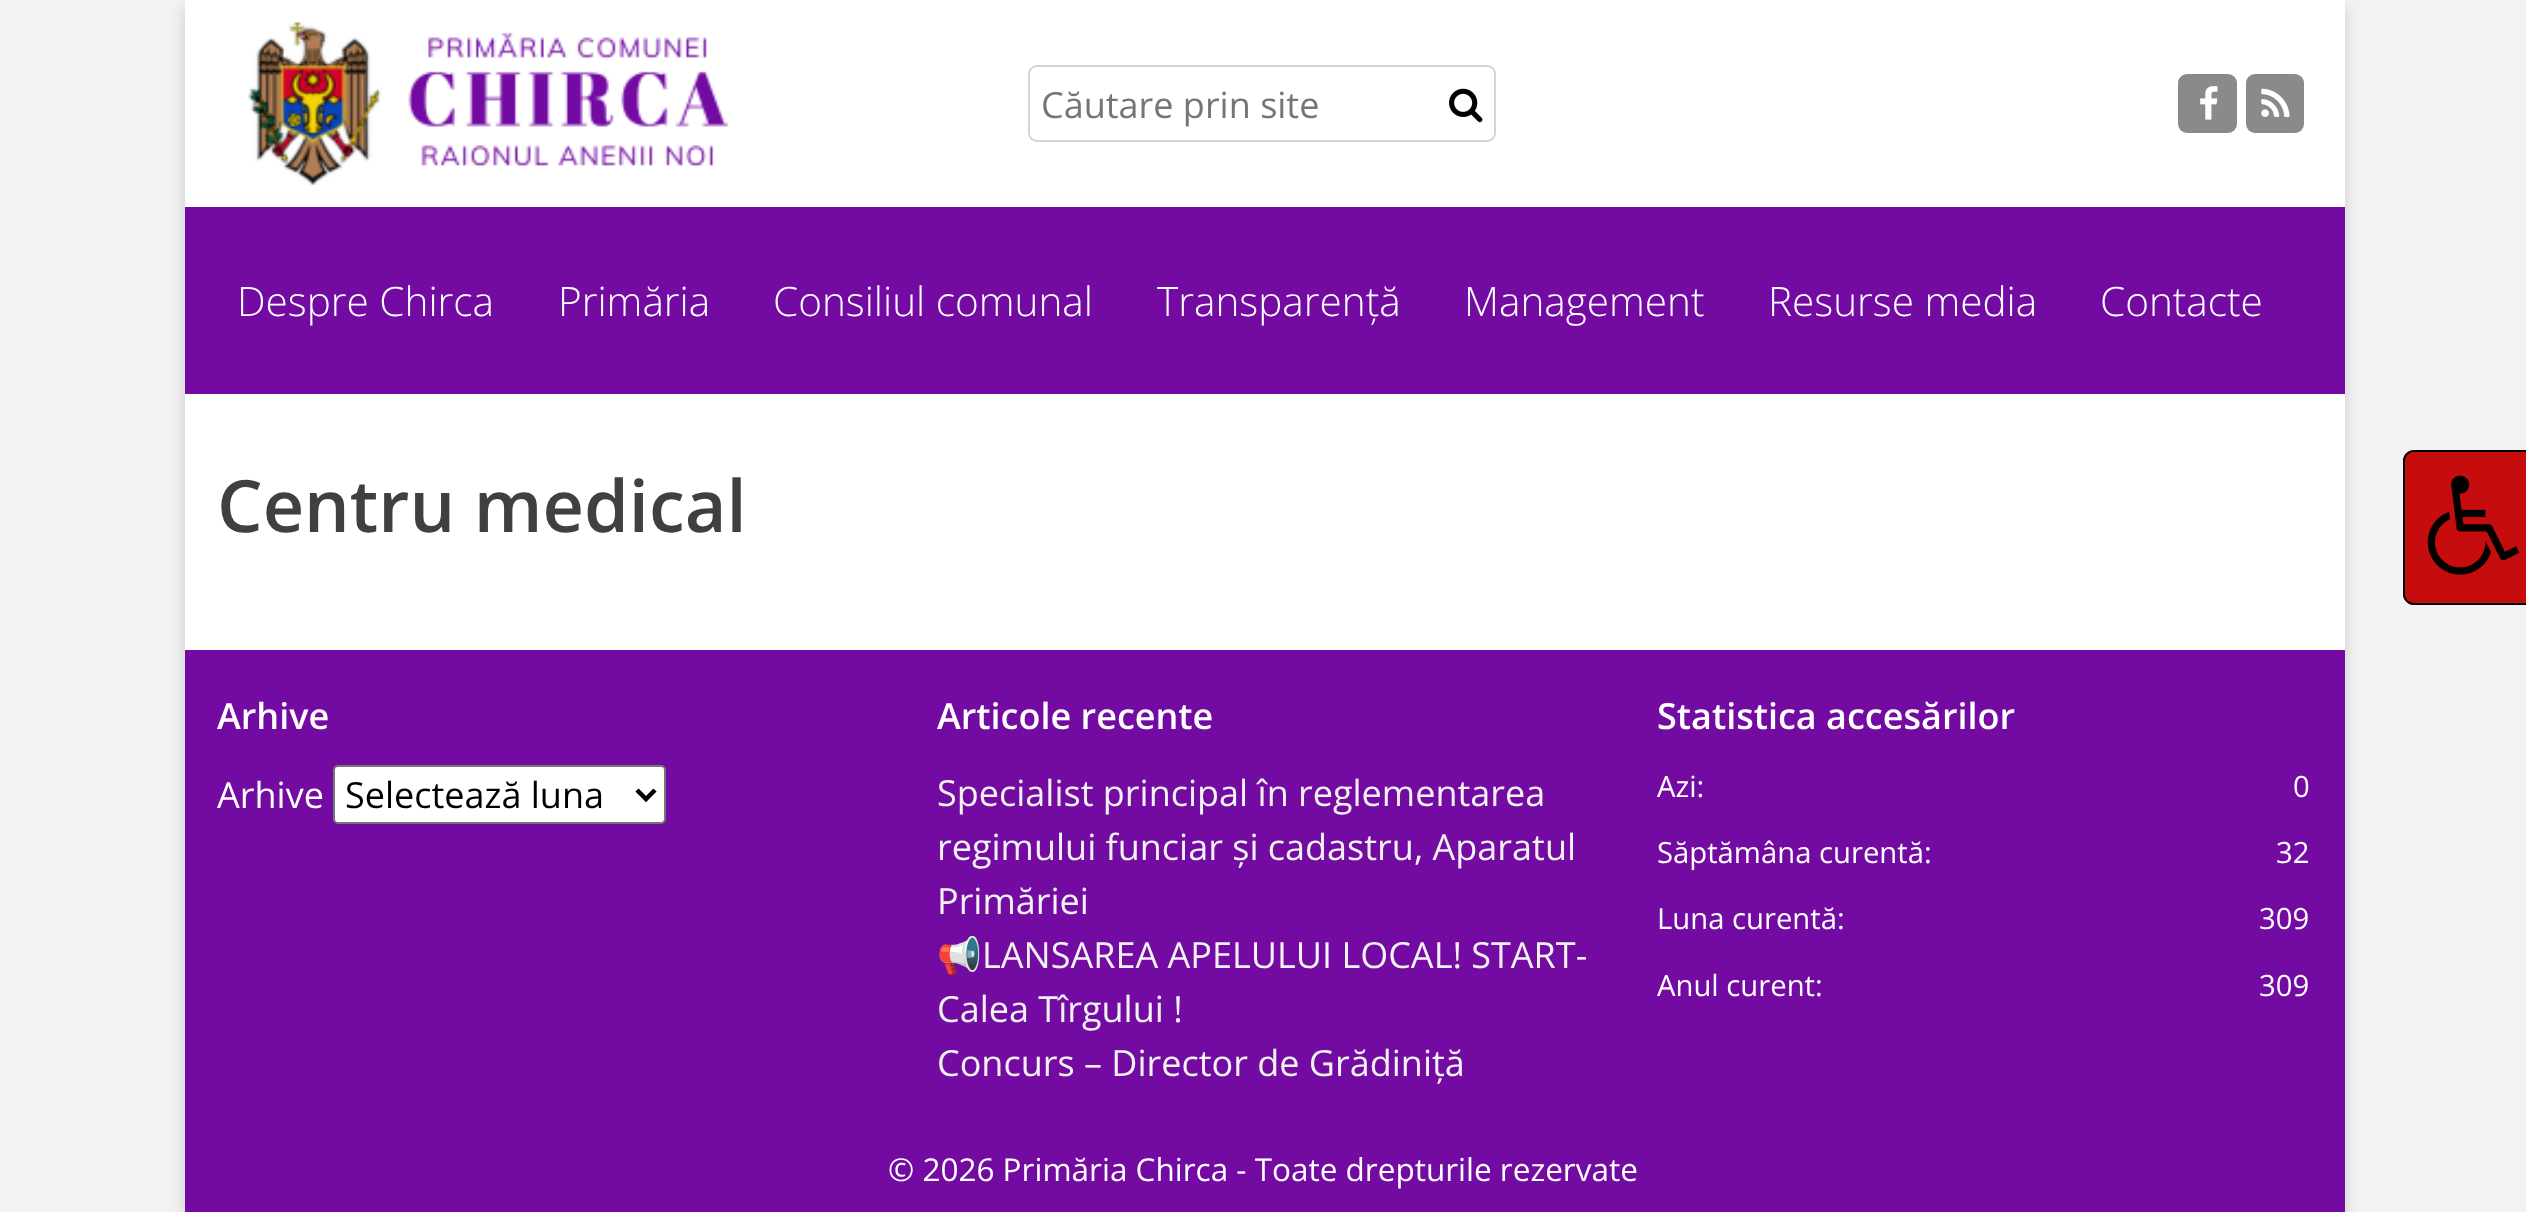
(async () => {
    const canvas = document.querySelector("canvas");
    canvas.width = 2526;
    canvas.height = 1212;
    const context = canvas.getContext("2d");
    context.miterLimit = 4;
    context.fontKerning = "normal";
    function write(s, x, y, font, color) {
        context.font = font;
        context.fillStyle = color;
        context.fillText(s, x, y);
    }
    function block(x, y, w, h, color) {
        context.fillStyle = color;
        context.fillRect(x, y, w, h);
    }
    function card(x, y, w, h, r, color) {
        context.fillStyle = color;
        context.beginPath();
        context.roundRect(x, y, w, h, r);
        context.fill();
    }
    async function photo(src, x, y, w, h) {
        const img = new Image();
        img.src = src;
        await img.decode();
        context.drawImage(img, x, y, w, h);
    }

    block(0, 0, 2526, 1212, "rgb(242, 242, 242)");
    context.fillStyle = "rgba(0, 0, 0, 0.16)";
    context.filter = "blur(7px)";
    context.beginPath();
    context.rect(185, 7, 2160, 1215);
    context.fill();
    context.filter = "none";
    block(185, 0, 2160, 650, "rgb(255, 255, 255)");
    await photo("media/1.png", 248, 22, 481, 163);
    context.beginPath();
    context.roundRect(1029, 66, 466, 75, 8);
    context.strokeStyle = "rgb(206, 212, 218)";
    context.lineWidth = 2;
    context.stroke();
    write("Căutare prin site", 1041, 118, "36px Open Sans", "rgb(117, 117, 117)");
    await photo("media/2.png", 1449, 88, 34, 35);
    card(2178, 74, 59, 59, 9, "rgb(138, 138, 138)");
    await photo("media/3.png", 2200, 86, 18, 34);
    card(2246, 74, 58, 59, 9, "rgb(138, 138, 138)");
    await photo("media/4.png", 2261, 88, 29, 29);
    block(185, 207, 2160, 187, "rgb(115, 11, 163)");
    write("Despre Chirca", 237, 316, "300 40.5px Open Sans", "rgb(255, 255, 255)");
    write("Primăria", 558, 316, "300 40.5px Open Sans", "rgb(255, 255, 255)");
    write("Consiliul comunal", 773, 316, "300 40.5px Open Sans", "rgb(255, 255, 255)");
    write("Transparență", 1157, 316, "300 40.5px Open Sans", "rgb(255, 255, 255)");
    write("Management", 1464, 316, "300 40.5px Open Sans", "rgb(255, 255, 255)");
    write("Resurse media", 1768, 316, "300 40.5px Open Sans", "rgb(255, 255, 255)");
    write("Contacte", 2100, 316, "300 40.5px Open Sans", "rgb(255, 255, 255)");
    write("Centru medical", 217, 532, "600 72px Open Sans", "rgb(64, 64, 64)");
    block(185, 650, 2160, 562, "rgb(115, 11, 163)");
    write("Arhive", 217, 729, "600 36px Open Sans", "rgb(255, 255, 255)");
    write("Arhive", 217, 808, "36px Open Sans", "rgb(255, 255, 255)");
    context.beginPath();
    context.roundRect(334, 766, 331, 57, 4);
    context.fill();
    context.strokeStyle = "rgb(118, 118, 118)";
    context.stroke();
    context.beginPath();
    context.moveTo(637, 790);
    context.lineTo(646, 799);
    context.lineTo(655, 790);
    context.strokeStyle = "rgb(0, 0, 0)";
    context.lineWidth = 4.5;
    context.stroke();
    write("Selectează luna", 345, 808, "36px Open Sans", "rgb(0, 0, 0)");
    write("Articole recente", 937, 729, "600 36px Open Sans", "rgb(255, 255, 255)");
    write("Specialist principal în reglementarea", 937, 806, "36px Open Sans", "rgb(242, 242, 242)");
    write("regimului funciar și cadastru, Aparatul", 937, 860, "36px Open Sans", "rgb(242, 242, 242)");
    write("Primăriei", 937, 914, "36px Open Sans", "rgb(242, 242, 242)");
    write("📢", 937, 968, "36px Noto Color Emoji", "rgb(242, 242, 242)");
    write("LANSAREA APELULUI LOCAL! START-", 982, 968, "36px Open Sans", "rgb(242, 242, 242)");
    write("Calea Tîrgului !", 937, 1022, "36px Open Sans", "rgb(242, 242, 242)");
    write("Concurs – Director de Grădiniță", 937, 1076, "36px Open Sans", "rgb(242, 242, 242)");
    write("Statistica accesărilor", 1657, 729, "600 36px Open Sans", "rgb(255, 255, 255)");
    write("Azi:", 1657, 797, "29.25px Open Sans", "rgb(255, 255, 255)");
    write("0", 2293, 797, "29.25px Open Sans", "rgb(255, 255, 255)");
    write("Săptămâna curentă:", 1657, 863, "29.25px Open Sans", "rgb(255, 255, 255)");
    write("32", 2276, 863, "29.25px Open Sans", "rgb(255, 255, 255)");
    write("Luna curentă:", 1657, 929, "29.25px Open Sans", "rgb(255, 255, 255)");
    write("309", 2259, 929, "29.25px Open Sans", "rgb(255, 255, 255)");
    write("Anul curent:", 1657, 996, "29.25px Open Sans", "rgb(255, 255, 255)");
    write("309", 2259, 996, "29.25px Open Sans", "rgb(255, 255, 255)");
    write("© 2026 Primăria Chirca - Toate drepturile rezervate", 888, 1181, "31.5px Open Sans", "rgb(255, 255, 255)");
    context.fillStyle = "rgb(198, 12, 12)";
    context.beginPath();
    context.moveTo(2414, 450);
    context.lineTo(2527, 450);
    context.lineTo(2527, 605);
    context.lineTo(2414, 605);
    context.bezierCurveTo(2408, 605, 2403, 600, 2403, 594);
    context.lineTo(2403, 461);
    context.bezierCurveTo(2403, 455, 2408, 450, 2414, 450);
    context.closePath();
    context.fill();
    context.fillStyle = "rgb(0, 0, 0)";
    context.beginPath();
    context.moveTo(2414, 450);
    context.lineTo(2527, 450);
    context.lineTo(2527, 605);
    context.lineTo(2414, 605);
    context.bezierCurveTo(2408, 605, 2403, 600, 2403, 594);
    context.lineTo(2403, 461);
    context.bezierCurveTo(2403, 455, 2408, 450, 2414, 450);
    context.closePath();
    context.moveTo(2414, 452);
    context.lineTo(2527, 452);
    context.lineTo(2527, 603);
    context.lineTo(2414, 603);
    context.bezierCurveTo(2409, 603, 2405, 599, 2405, 594);
    context.lineTo(2405, 461);
    context.bezierCurveTo(2405, 456, 2409, 452, 2414, 452);
    context.closePath();
    context.fill("evenodd");
    await photo("media/5.png", 2427, 475, 93, 100);
})();
